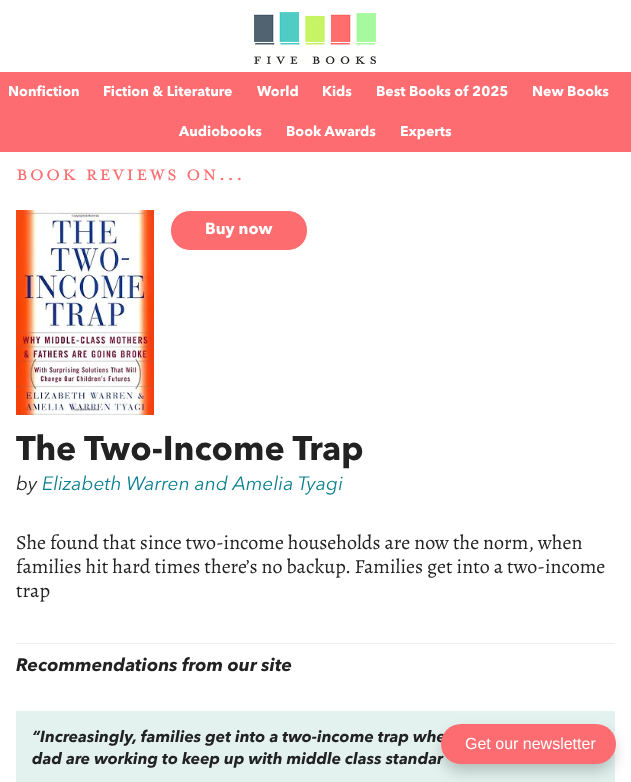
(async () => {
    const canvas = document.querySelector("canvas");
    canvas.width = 631;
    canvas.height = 782;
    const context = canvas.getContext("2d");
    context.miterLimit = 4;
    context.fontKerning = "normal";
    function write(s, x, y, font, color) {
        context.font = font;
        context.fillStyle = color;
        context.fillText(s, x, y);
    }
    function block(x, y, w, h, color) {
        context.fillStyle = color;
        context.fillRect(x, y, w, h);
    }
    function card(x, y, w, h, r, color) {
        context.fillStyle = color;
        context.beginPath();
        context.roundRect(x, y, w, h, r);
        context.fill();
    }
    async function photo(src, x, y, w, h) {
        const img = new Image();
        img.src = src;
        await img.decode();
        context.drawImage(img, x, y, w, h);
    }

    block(0, 0, 631, 782, "rgb(255, 255, 255)");
    await photo("media/1.png", 254, 12, 122, 30);
    await photo("media/2.png", 254, 43, 122, 21);
    block(0, 72, 631, 80, "rgb(253, 108, 113)");
    write("Nonfiction", 8, 96, "bold 14px Avenir Next", "rgb(255, 255, 255)");
    write("Fiction & Literature", 103, 96, "bold 14px Avenir Next", "rgb(255, 255, 255)");
    write("World", 257, 96, "bold 14px Avenir Next", "rgb(255, 255, 255)");
    write("Kids", 322, 96, "bold 14px Avenir Next", "rgb(255, 255, 255)");
    write("Best Books of 2025", 376, 96, "bold 14px Avenir Next", "rgb(255, 255, 255)");
    write("New Books", 532, 96, "bold 14px Avenir Next", "rgb(255, 255, 255)");
    write("Audiobooks", 179, 136, "bold 14px Avenir Next", "rgb(255, 255, 255)");
    write("Book Awards", 286, 136, "bold 14px Avenir Next", "rgb(255, 255, 255)");
    write("Experts", 400, 136, "bold 14px Avenir Next", "rgb(255, 255, 255)");
    context.letterSpacing = "2px";
    write("BOOK REVIEWS ON...", 16, 180, "500 24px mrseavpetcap", "rgb(253, 109, 111)");
    await photo("media/3.png", 16, 210, 138, 205);
    context.beginPath();
    context.roundRect(170.5, 210.5, 137, 40, 19.5);
    context.fill();
    context.strokeStyle = "rgb(255, 255, 255)";
    context.stroke();
    context.letterSpacing = "0px";
    write("Buy now", 205, 234, "bold 16px Avenir Next", "rgb(255, 255, 255)");
    write("The Two-Income Trap", 16, 460, "bold 34px Avenir Next", "rgb(34, 34, 34)");
    write("by", 16, 490, "italic 19.25px Avenir Next", "rgb(34, 34, 34)");
    write("Elizabeth Warren and Amelia Tyagi", 42, 490, "italic 19.25px Avenir Next", "rgb(8, 127, 142)");
    write("She found that since two-income households are now the norm, when", 16, 549, "20px Alegreya", "rgb(34, 34, 34)");
    write("families hit hard times there’s no backup. Families get into a two-income", 16, 573, "20px Alegreya", "rgb(34, 34, 34)");
    write("trap", 16, 597, "20px Alegreya", "rgb(34, 34, 34)");
    block(16, 643, 599, 1, "rgb(238, 238, 238)");
    write("Recommendations from our site", 16, 671, "italic bold 18px Avenir Next", "rgb(34, 34, 34)");
    block(16, 711, 599, 71, "rgb(227, 242, 239)");
    write("“Increasingly, families get into a two-income trap whe", 32, 742, "italic bold 16px Avenir Next", "rgb(34, 34, 34)");
    write("dad are working to keep up with middle class standar", 32, 764, "italic bold 16px Avenir Next", "rgb(34, 34, 34)");
    context.fillStyle = "rgba(0, 0, 0, 0.24)";
    context.filter = "blur(8px)";
    context.beginPath();
    context.roundRect(443, 734, 171, 36, 18);
    context.fill();
    context.filter = "none";
    card(441, 724, 175, 40, 20, "rgb(253, 108, 113)");
    write("Get our newsletter", 465, 749, "16px Liberation Sans", "rgb(255, 255, 255)");
})();
